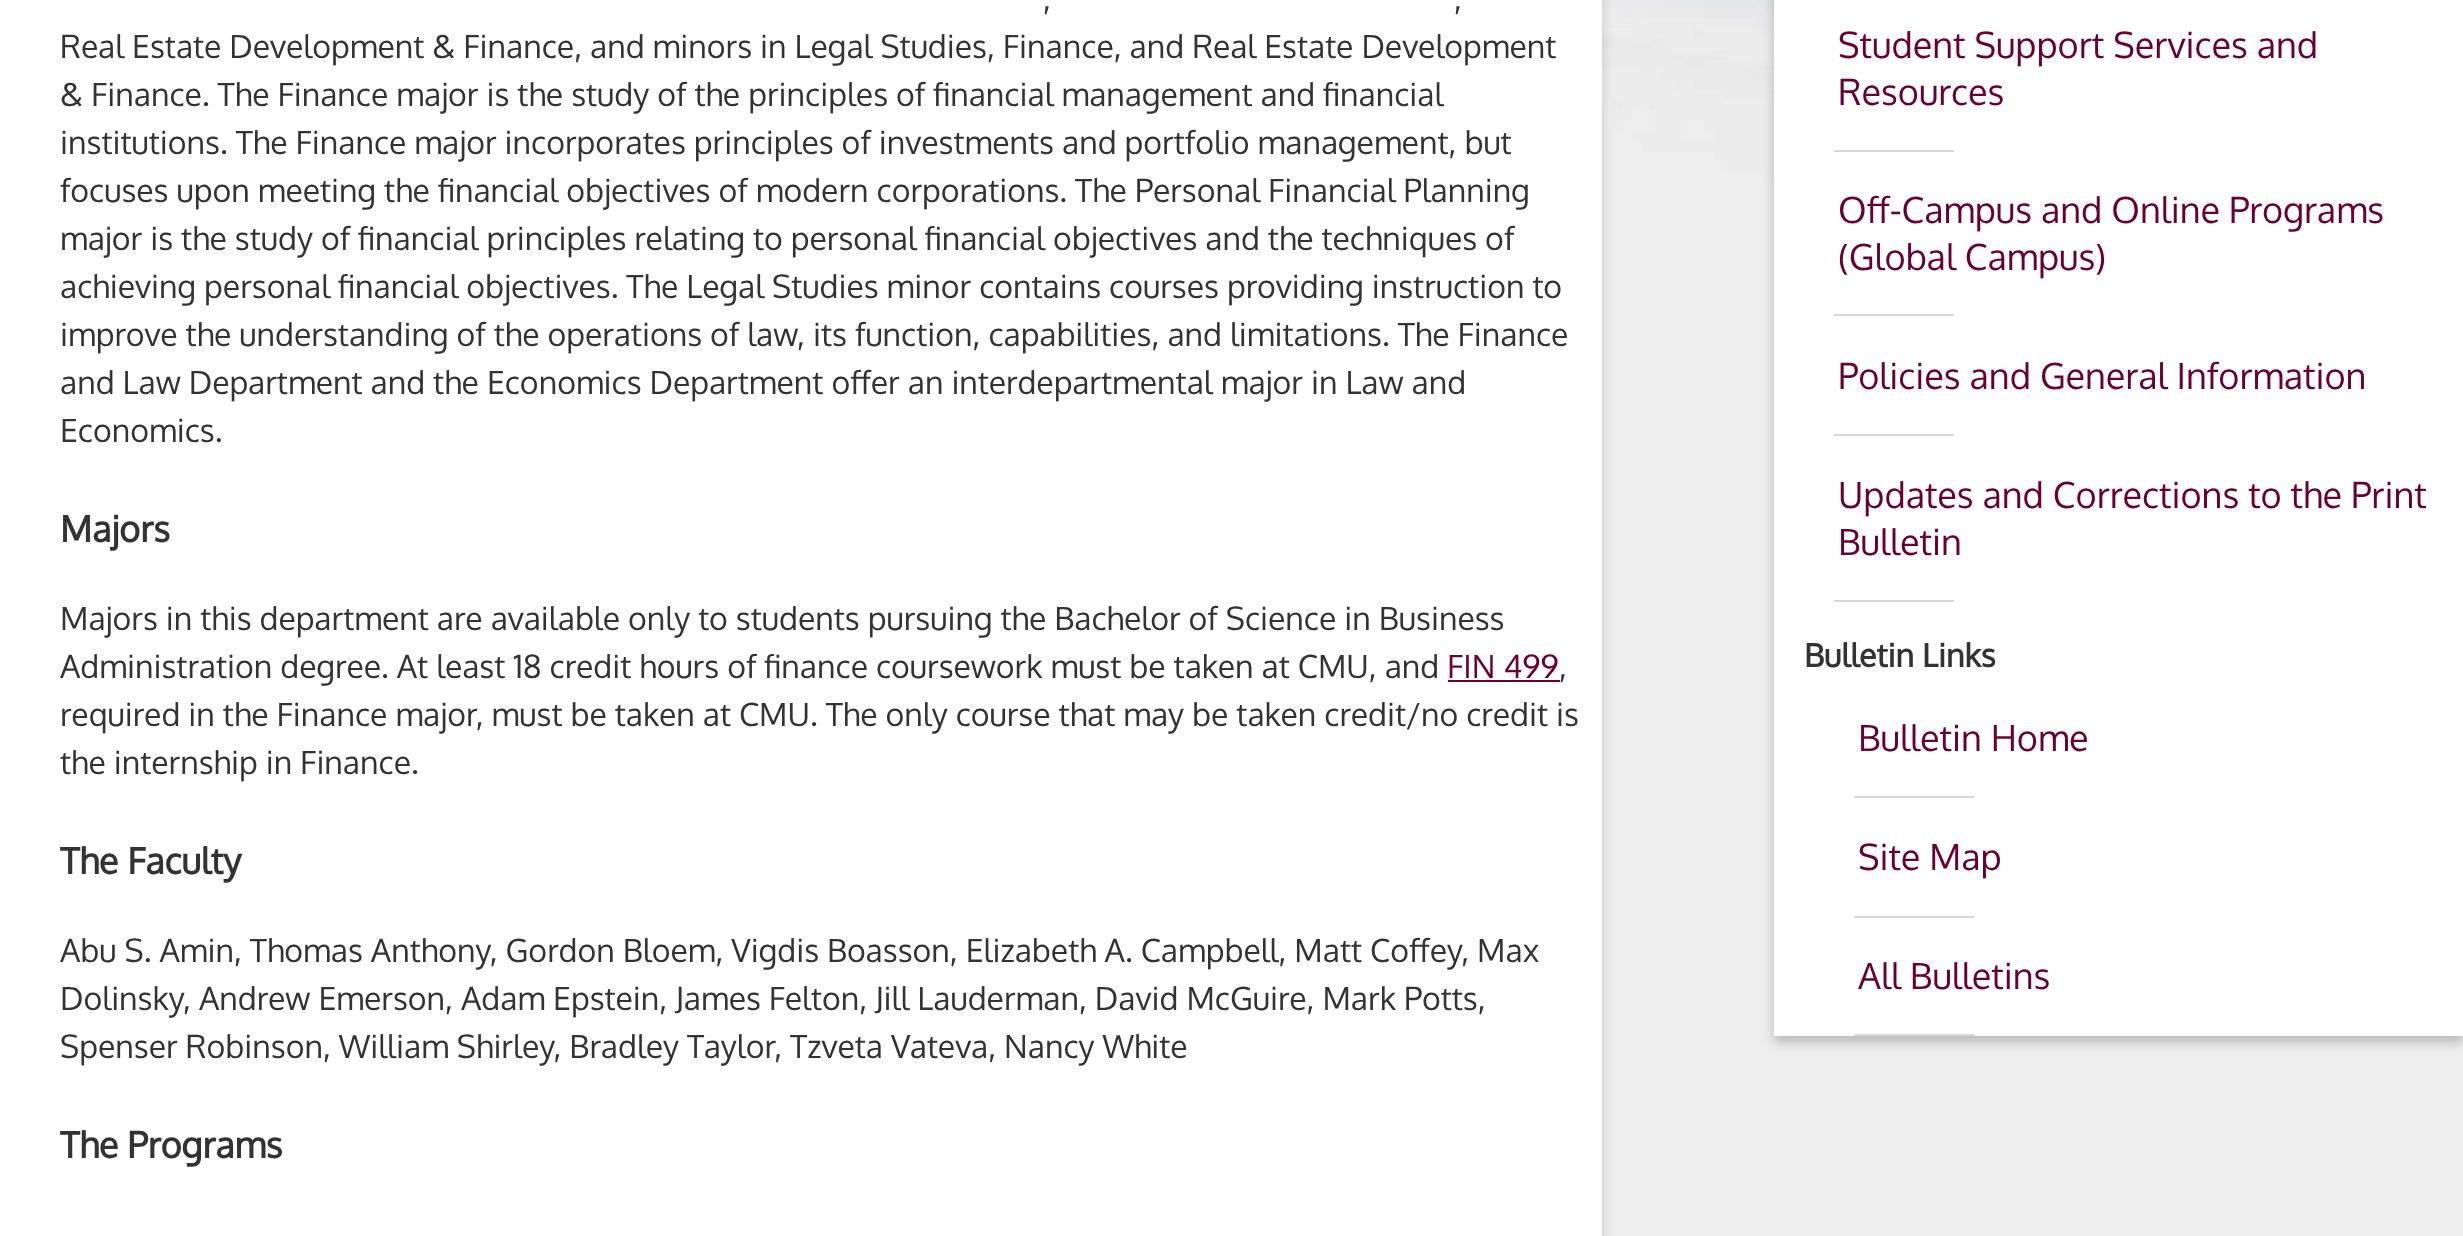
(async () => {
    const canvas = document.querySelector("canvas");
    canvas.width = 2463;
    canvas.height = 1236;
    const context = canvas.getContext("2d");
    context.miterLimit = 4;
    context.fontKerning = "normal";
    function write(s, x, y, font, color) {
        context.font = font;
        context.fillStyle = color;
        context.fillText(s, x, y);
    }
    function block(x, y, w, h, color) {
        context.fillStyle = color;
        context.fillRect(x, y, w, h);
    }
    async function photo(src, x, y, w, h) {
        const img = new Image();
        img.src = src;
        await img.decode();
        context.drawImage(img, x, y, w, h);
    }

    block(0, 0, 2463, 1236, "rgb(238, 238, 238)");
    await photo("media/1.png", 1602, 0, 172, 316);
    context.fillStyle = "rgba(0, 0, 0, 0.16)";
    context.filter = "blur(6px)";
    context.beginPath();
    context.rect(0, -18, 1602, 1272);
    context.fill();
    context.filter = "none";
    block(0, 0, 1602, 1236, "rgb(255, 255, 255)");
    write(",", 1043, 10, "32px Oxygen", "rgb(51, 51, 51)");
    write(",", 1454, 10, "32px Oxygen", "rgb(51, 51, 51)");
    write("Real Estate Development & Finance, and minors in Legal Studies, Finance, and Real Estate Development", 60, 58, "32px Oxygen", "rgb(51, 51, 51)");
    write("& Finance. The Finance major is the study of the principles of financial management and financial", 60, 106, "32px Oxygen", "rgb(51, 51, 51)");
    write("institutions. The Finance major incorporates principles of investments and portfolio management, but", 60, 154, "32px Oxygen", "rgb(51, 51, 51)");
    write("focuses upon meeting the financial objectives of modern corporations. The Personal Financial Planning", 60, 202, "32px Oxygen", "rgb(51, 51, 51)");
    write("major is the study of financial principles relating to personal financial objectives and the techniques of", 60, 250, "32px Oxygen", "rgb(51, 51, 51)");
    write("achieving personal financial objectives. The Legal Studies minor contains courses providing instruction to", 60, 298, "32px Oxygen", "rgb(51, 51, 51)");
    write("improve the understanding of the operations of law, its function, capabilities, and limitations. The Finance", 60, 346, "32px Oxygen", "rgb(51, 51, 51)");
    write("and Law Department and the Economics Department offer an interdepartmental major in Law and", 60, 394, "32px Oxygen", "rgb(51, 51, 51)");
    write("Economics.", 60, 442, "32px Oxygen", "rgb(51, 51, 51)");
    write("Majors", 60, 542, "bold 36px Oxygen", "rgb(51, 51, 51)");
    write("Majors in this department are available only to students pursuing the Bachelor of Science in Business", 60, 630, "32px Oxygen", "rgb(51, 51, 51)");
    write("Administration degree. At least 18 credit hours of finance coursework must be taken at CMU, and", 60, 678, "32px Oxygen", "rgb(51, 51, 51)");
    write("FIN 499", 1447, 678, "32px Oxygen", "rgb(106, 0, 50)");
    block(1448, 680, 112, 2, "rgb(106, 0, 50)");
    write(",", 1559, 678, "32px Oxygen", "rgb(51, 51, 51)");
    write("required in the Finance major, must be taken at CMU. The only course that may be taken credit/no credit is", 60, 726, "32px Oxygen", "rgb(51, 51, 51)");
    write("the internship in Finance.", 60, 774, "32px Oxygen", "rgb(51, 51, 51)");
    write("The Faculty", 60, 874, "bold 36px Oxygen", "rgb(51, 51, 51)");
    write("Abu S. Amin, Thomas Anthony, Gordon Bloem, Vigdis Boasson, Elizabeth A. Campbell, Matt Coffey, Max", 60, 962, "32px Oxygen", "rgb(51, 51, 51)");
    write("Dolinsky, Andrew Emerson, Adam Epstein, James Felton, Jill Lauderman, David McGuire, Mark Potts,", 60, 1010, "32px Oxygen", "rgb(51, 51, 51)");
    write("Spenser Robinson, William Shirley, Bradley Taylor, Tzveta Vateva, Nancy White", 60, 1058, "32px Oxygen", "rgb(51, 51, 51)");
    write("The Programs", 60, 1158, "bold 36px Oxygen", "rgb(51, 51, 51)");
    context.fillStyle = "rgba(0, 0, 0, 0.23)";
    context.filter = "blur(6px)";
    context.beginPath();
    context.rect(1774, -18, 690, 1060);
    context.fill();
    context.filter = "none";
    block(1774, 0, 689, 1036, "rgb(255, 255, 255)");
    write("Student Support Services and", 1838, 58, "36px Oxygen", "rgb(106, 0, 50)");
    write("Resources", 1838, 105, "36px Oxygen", "rgb(106, 0, 50)");
    block(1834, 150, 120, 2, "rgb(216, 216, 216)");
    write("Off-Campus and Online Programs", 1838, 223, "36px Oxygen", "rgb(106, 0, 50)");
    write("(Global Campus)", 1838, 270, "36px Oxygen", "rgb(106, 0, 50)");
    block(1834, 314, 120, 2, "rgb(216, 216, 216)");
    write("Policies and General Information", 1838, 389, "36px Oxygen", "rgb(106, 0, 50)");
    block(1834, 434, 120, 2, "rgb(216, 216, 216)");
    write("Updates and Corrections to the Print", 1838, 508, "36px Oxygen", "rgb(106, 0, 50)");
    write("Bulletin", 1838, 555, "36px Oxygen", "rgb(106, 0, 50)");
    block(1834, 600, 120, 2, "rgb(216, 216, 216)");
    write("Bulletin Links", 1804, 667, "bold 32px Oxygen", "rgb(51, 51, 51)");
    write("Bulletin Home", 1858, 751, "36px Oxygen", "rgb(106, 0, 50)");
    block(1854, 796, 120, 2, "rgb(216, 216, 216)");
    write("Site Map", 1858, 870, "36px Oxygen", "rgb(106, 0, 50)");
    block(1854, 916, 120, 2, "rgb(216, 216, 216)");
    write("All Bulletins", 1858, 989, "36px Oxygen", "rgb(106, 0, 50)");
    block(1854, 1034, 120, 2, "rgb(216, 216, 216)");
})();
